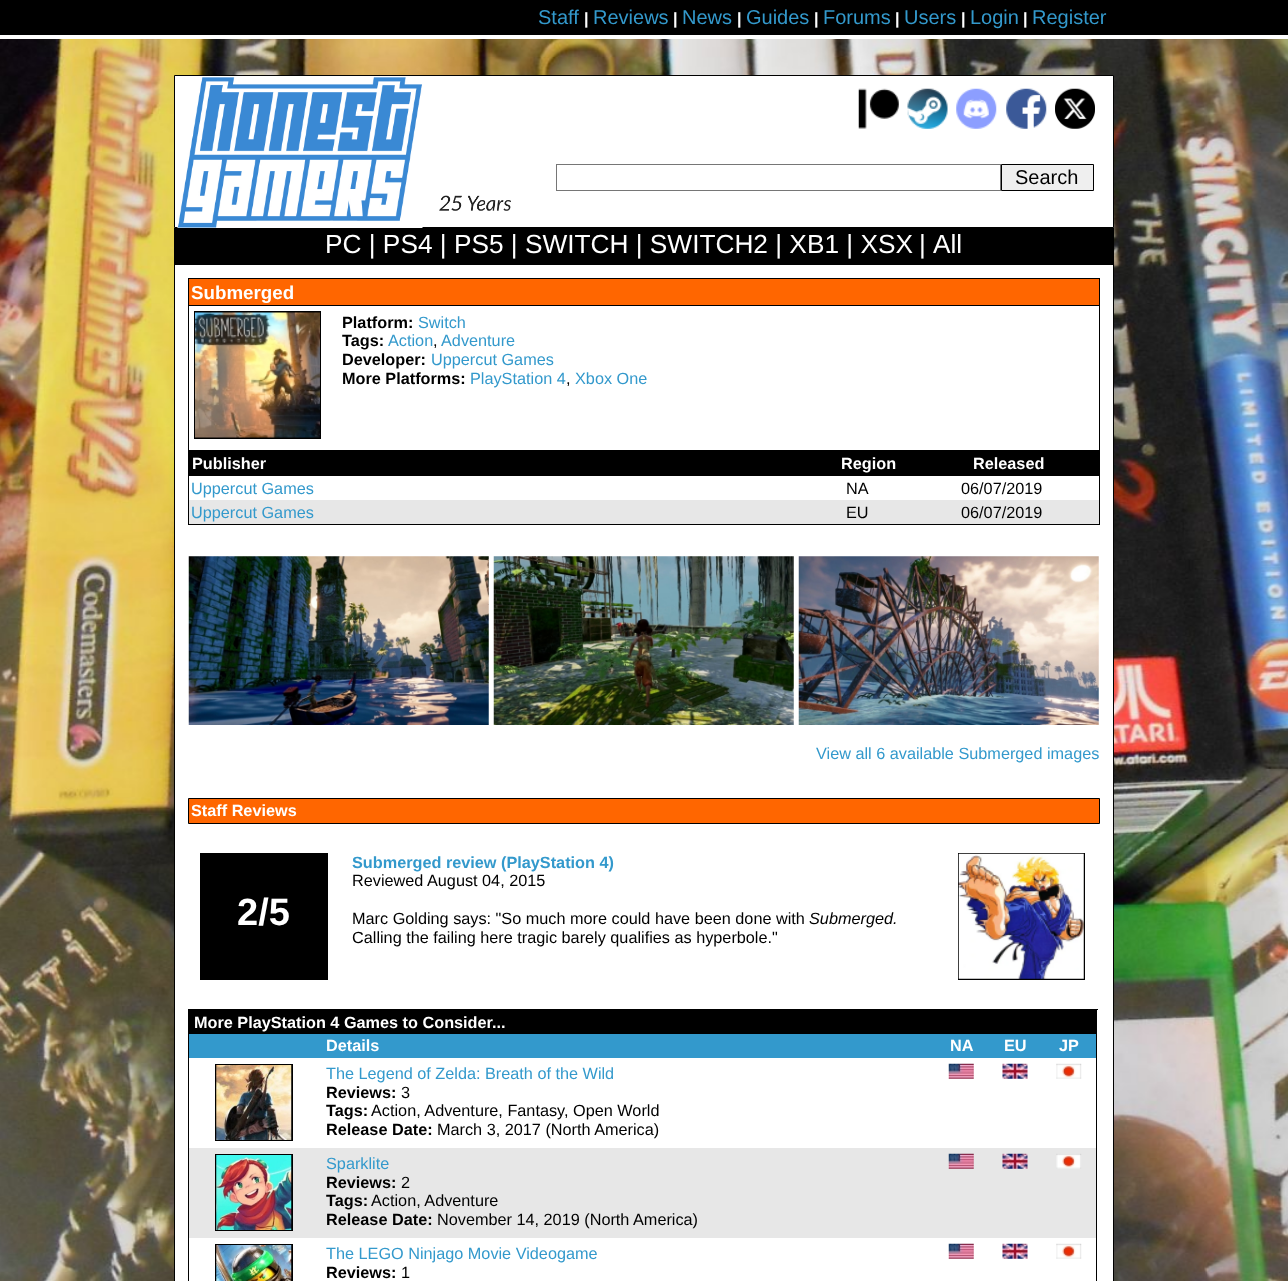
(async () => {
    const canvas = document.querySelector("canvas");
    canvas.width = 1288;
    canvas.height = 1281;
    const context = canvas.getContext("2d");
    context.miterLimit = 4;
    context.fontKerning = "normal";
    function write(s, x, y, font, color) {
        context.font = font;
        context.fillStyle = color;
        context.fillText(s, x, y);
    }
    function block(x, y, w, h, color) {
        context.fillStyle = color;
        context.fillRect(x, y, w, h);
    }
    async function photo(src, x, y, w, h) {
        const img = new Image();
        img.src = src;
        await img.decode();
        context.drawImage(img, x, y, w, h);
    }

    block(0, 0, 1288, 1281, "rgb(255, 255, 255)");
    await photo("media/1.png", 0, 39, 1288, 1242);
    block(0, 0, 1288, 35, "rgb(0, 0, 0)");
    write("Staff", 538, 24, "20px Liberation Sans", "rgb(51, 153, 204)");
    write("|", 584, 24, "bold 16.25px Liberation Sans", "rgb(255, 255, 255)");
    write("Reviews", 593, 24, "20px Liberation Sans", "rgb(51, 153, 204)");
    write("|", 673, 24, "bold 16.25px Liberation Sans", "rgb(255, 255, 255)");
    write("News", 682, 24, "20px Liberation Sans", "rgb(51, 153, 204)");
    write("|", 737, 24, "bold 16.25px Liberation Sans", "rgb(255, 255, 255)");
    write("Guides", 746, 24, "20px Liberation Sans", "rgb(51, 153, 204)");
    write("|", 814, 24, "bold 16.25px Liberation Sans", "rgb(255, 255, 255)");
    write("Forums", 823, 24, "20px Liberation Sans", "rgb(51, 153, 204)");
    write("|", 895, 24, "bold 16.25px Liberation Sans", "rgb(255, 255, 255)");
    write("Users", 904, 24, "20px Liberation Sans", "rgb(51, 153, 204)");
    write("|", 961, 24, "bold 16.25px Liberation Sans", "rgb(255, 255, 255)");
    write("Login", 970, 24, "20px Liberation Sans", "rgb(51, 153, 204)");
    write("|", 1023, 24, "bold 16.25px Liberation Sans", "rgb(255, 255, 255)");
    write("Register", 1032, 24, "20px Liberation Sans", "rgb(51, 153, 204)");
    context.fillStyle = "rgb(255, 255, 255)";
    context.beginPath();
    context.rect(174.5, 75.5, 939, 152);
    context.fill();
    context.strokeStyle = "rgb(0, 0, 0)";
    context.stroke();
    await photo("media/2.png", 177, 77, 246, 151);
    await photo("media/3.png", 439, 195, 72, 16);
    await photo("media/4.png", 858, 88, 41, 41);
    await photo("media/5.png", 907, 88, 41, 41);
    await photo("media/6.png", 956, 88, 41, 41);
    await photo("media/7.png", 1006, 88, 41, 41);
    await photo("media/8.png", 1055, 88, 40, 41);
    context.strokeStyle = "rgb(118, 118, 118)";
    context.strokeRect(556.5, 164.5, 444, 26);
    context.fillStyle = "rgb(239, 239, 239)";
    context.beginPath();
    context.rect(1001.5, 164.5, 92, 26);
    context.fill();
    context.strokeStyle = "rgb(0, 0, 0)";
    context.stroke();
    write("Search", 1015, 184, "20px Liberation Sans", "rgb(0, 0, 0)");
    block(174, 228, 940, 37, "rgb(0, 0, 0)");
    write("PC | PS4 | PS5 | SWITCH | SWITCH2 | XB1 | XSX", 325, 253, "26.25px Liberation Sans", "rgb(255, 255, 255)");
    write("|", 919, 253, "26.25px Liberation Sans", "rgb(255, 255, 255)");
    write("All", 933, 253, "26.25px Liberation Sans", "rgb(255, 255, 255)");
    block(175, 265, 938, 1016, "rgb(255, 255, 255)");
    block(1113, 264, 1, 1017, "rgb(0, 0, 0)");
    block(174, 264, 1, 1017, "rgb(0, 0, 0)");
    context.strokeRect(188.5, 278.5, 911, 246);
    block(189, 279, 910, 26, "rgb(255, 102, 0)");
    block(189, 305, 910, 1, "rgb(0, 0, 0)");
    write("Submerged", 191, 299, "bold 18.75px Liberation Sans", "rgb(255, 255, 255)");
    block(194, 311, 127, 128, "rgb(0, 0, 0)");
    await photo("media/9.png", 195, 312, 125, 126);
    write("Platform:", 342, 328, "bold 16.25px Liberation Sans", "rgb(0, 0, 0)");
    write("Switch", 418, 328, "16.25px Liberation Sans", "rgb(51, 153, 204)");
    write("Tags:", 342, 346, "bold 16.25px Liberation Sans", "rgb(0, 0, 0)");
    write("Action", 388, 346, "16.25px Liberation Sans", "rgb(51, 153, 204)");
    write(",", 433, 346, "16.25px Liberation Sans", "rgb(0, 0, 0)");
    write("Adventure", 441, 346, "16.25px Liberation Sans", "rgb(51, 153, 204)");
    write("Developer:", 342, 365, "bold 16.25px Liberation Sans", "rgb(0, 0, 0)");
    write("Uppercut Games", 431, 365, "16.25px Liberation Sans", "rgb(51, 153, 204)");
    write("More Platforms:", 342, 384, "bold 16.25px Liberation Sans", "rgb(0, 0, 0)");
    write("PlayStation 4", 470, 384, "16.25px Liberation Sans", "rgb(51, 153, 204)");
    write(",", 566, 384, "16.25px Liberation Sans", "rgb(0, 0, 0)");
    write("Xbox One", 575, 384, "16.25px Liberation Sans", "rgb(51, 153, 204)");
    block(189, 450, 910, 26, "rgb(0, 0, 0)");
    write("Publisher", 192, 469, "bold 16.25px Liberation Sans", "rgb(255, 255, 255)");
    write("Region", 841, 469, "bold 16.25px Liberation Sans", "rgb(255, 255, 255)");
    write("Released", 973, 469, "bold 16.25px Liberation Sans", "rgb(255, 255, 255)");
    write("Uppercut Games", 191, 494, "16.25px Liberation Sans", "rgb(51, 153, 204)");
    write("NA", 846, 494, "16.25px Liberation Sans", "rgb(0, 0, 0)");
    write("06/07/2019", 961, 494, "16.25px Liberation Sans", "rgb(0, 0, 0)");
    block(189, 500, 910, 24, "rgb(231, 231, 231)");
    write("Uppercut Games", 191, 518, "16.25px Liberation Sans", "rgb(51, 153, 204)");
    write("EU", 846, 518, "16.25px Liberation Sans", "rgb(0, 0, 0)");
    write("06/07/2019", 961, 518, "16.25px Liberation Sans", "rgb(0, 0, 0)");
    await photo("media/10.png", 188, 556, 301, 169);
    await photo("media/11.png", 493, 556, 301, 169);
    await photo("media/12.png", 798, 556, 301, 169);
    write("View all 6 available Submerged images", 816, 759, "16.25px Liberation Sans", "rgb(51, 153, 204)");
    context.fillStyle = "rgb(255, 102, 0)";
    context.beginPath();
    context.rect(188.5, 798.5, 911, 25);
    context.fill();
    context.stroke();
    write("Staff Reviews", 191, 816, "bold 16.25px Liberation Sans", "rgb(255, 255, 255)");
    block(200, 853, 128, 127, "rgb(0, 0, 0)");
    write("2/5", 237, 925, "bold 38px Liberation Sans", "rgb(255, 255, 255)");
    write("Submerged review (PlayStation 4)", 352, 868, "bold 16.25px Liberation Sans", "rgb(51, 153, 204)");
    write("Reviewed August 04, 2015", 352, 886, "16.25px Liberation Sans", "rgb(0, 0, 0)");
    write("Marc Golding says: \"So much more could have been done with", 352, 924, "16.25px Liberation Sans", "rgb(0, 0, 0)");
    write("Submerged.", 809, 924, "italic 16.25px Liberation Sans", "rgb(0, 0, 0)");
    write("Calling the failing here tragic barely qualifies as hyperbole.\"", 352, 943, "16.25px Liberation Sans", "rgb(0, 0, 0)");
    block(958, 853, 127, 127, "rgb(0, 0, 0)");
    await photo("media/13.png", 958, 853, 126, 126);
    block(188, 1009, 910, 1, "rgb(0, 0, 0)");
    block(1096, 1009, 1, 272, "rgb(0, 0, 0)");
    block(188, 1009, 1, 272, "rgb(0, 0, 0)");
    block(189, 1010, 907, 24, "rgb(0, 0, 0)");
    write("More PlayStation 4 Games to Consider...", 194, 1028, "bold 16.25px Liberation Sans", "rgb(255, 255, 255)");
    block(189, 1034, 907, 24, "rgb(51, 153, 204)");
    write("Details", 326, 1051, "bold 16.25px Liberation Sans", "rgb(255, 255, 255)");
    write("NA", 950, 1051, "bold 16.25px Liberation Sans", "rgb(255, 255, 255)");
    write("EU", 1004, 1051, "bold 16.25px Liberation Sans", "rgb(255, 255, 255)");
    write("JP", 1059, 1051, "bold 16.25px Liberation Sans", "rgb(255, 255, 255)");
    block(215, 1064, 78, 77, "rgb(0, 0, 0)");
    await photo("media/14.png", 216, 1065, 76, 75);
    write("The Legend of Zelda: Breath of the Wild", 326, 1079, "16.25px Liberation Sans", "rgb(51, 153, 204)");
    write("Reviews:", 326, 1098, "bold 16.25px Liberation Sans", "rgb(0, 0, 0)");
    write("3", 401, 1098, "16.25px Liberation Sans", "rgb(0, 0, 0)");
    write("Tags:", 326, 1116, "bold 16.25px Liberation Sans", "rgb(0, 0, 0)");
    write("Action, Adventure, Fantasy, Open World", 371, 1116, "16.25px Liberation Sans", "rgb(0, 0, 0)");
    write("Release Date:", 326, 1135, "bold 16.25px Liberation Sans", "rgb(0, 0, 0)");
    write("March 3, 2017 (North America)", 437, 1135, "16.25px Liberation Sans", "rgb(0, 0, 0)");
    await photo("media/15.png", 948, 1063, 26, 16);
    await photo("media/16.png", 1002, 1063, 26, 16);
    await photo("media/17.png", 1056, 1063, 26, 16);
    block(189, 1148, 907, 90, "rgb(231, 231, 231)");
    block(215, 1154, 78, 77, "rgb(0, 0, 0)");
    await photo("media/18.png", 216, 1155, 76, 75);
    write("Sparklite", 326, 1169, "16.25px Liberation Sans", "rgb(51, 153, 204)");
    write("Reviews:", 326, 1188, "bold 16.25px Liberation Sans", "rgb(0, 0, 0)");
    write("2", 401, 1188, "16.25px Liberation Sans", "rgb(0, 0, 0)");
    write("Tags:", 326, 1206, "bold 16.25px Liberation Sans", "rgb(0, 0, 0)");
    write("Action, Adventure", 371, 1206, "16.25px Liberation Sans", "rgb(0, 0, 0)");
    write("Release Date:", 326, 1225, "bold 16.25px Liberation Sans", "rgb(0, 0, 0)");
    write("November 14, 2019 (North America)", 437, 1225, "16.25px Liberation Sans", "rgb(0, 0, 0)");
    await photo("media/19.png", 948, 1153, 26, 16);
    await photo("media/20.png", 1002, 1153, 26, 16);
    await photo("media/21.png", 1056, 1153, 26, 16);
    block(215, 1244, 78, 37, "rgb(0, 0, 0)");
    await photo("media/22.png", 216, 1245, 76, 36);
    write("The LEGO Ninjago Movie Videogame", 326, 1259, "16.25px Liberation Sans", "rgb(51, 153, 204)");
    write("Reviews:", 326, 1278, "bold 16.25px Liberation Sans", "rgb(0, 0, 0)");
    write("1", 401, 1278, "16.25px Liberation Sans", "rgb(0, 0, 0)");
    await photo("media/15.png", 948, 1243, 26, 16);
    await photo("media/16.png", 1002, 1243, 26, 16);
    await photo("media/17.png", 1056, 1243, 26, 16);
})();
